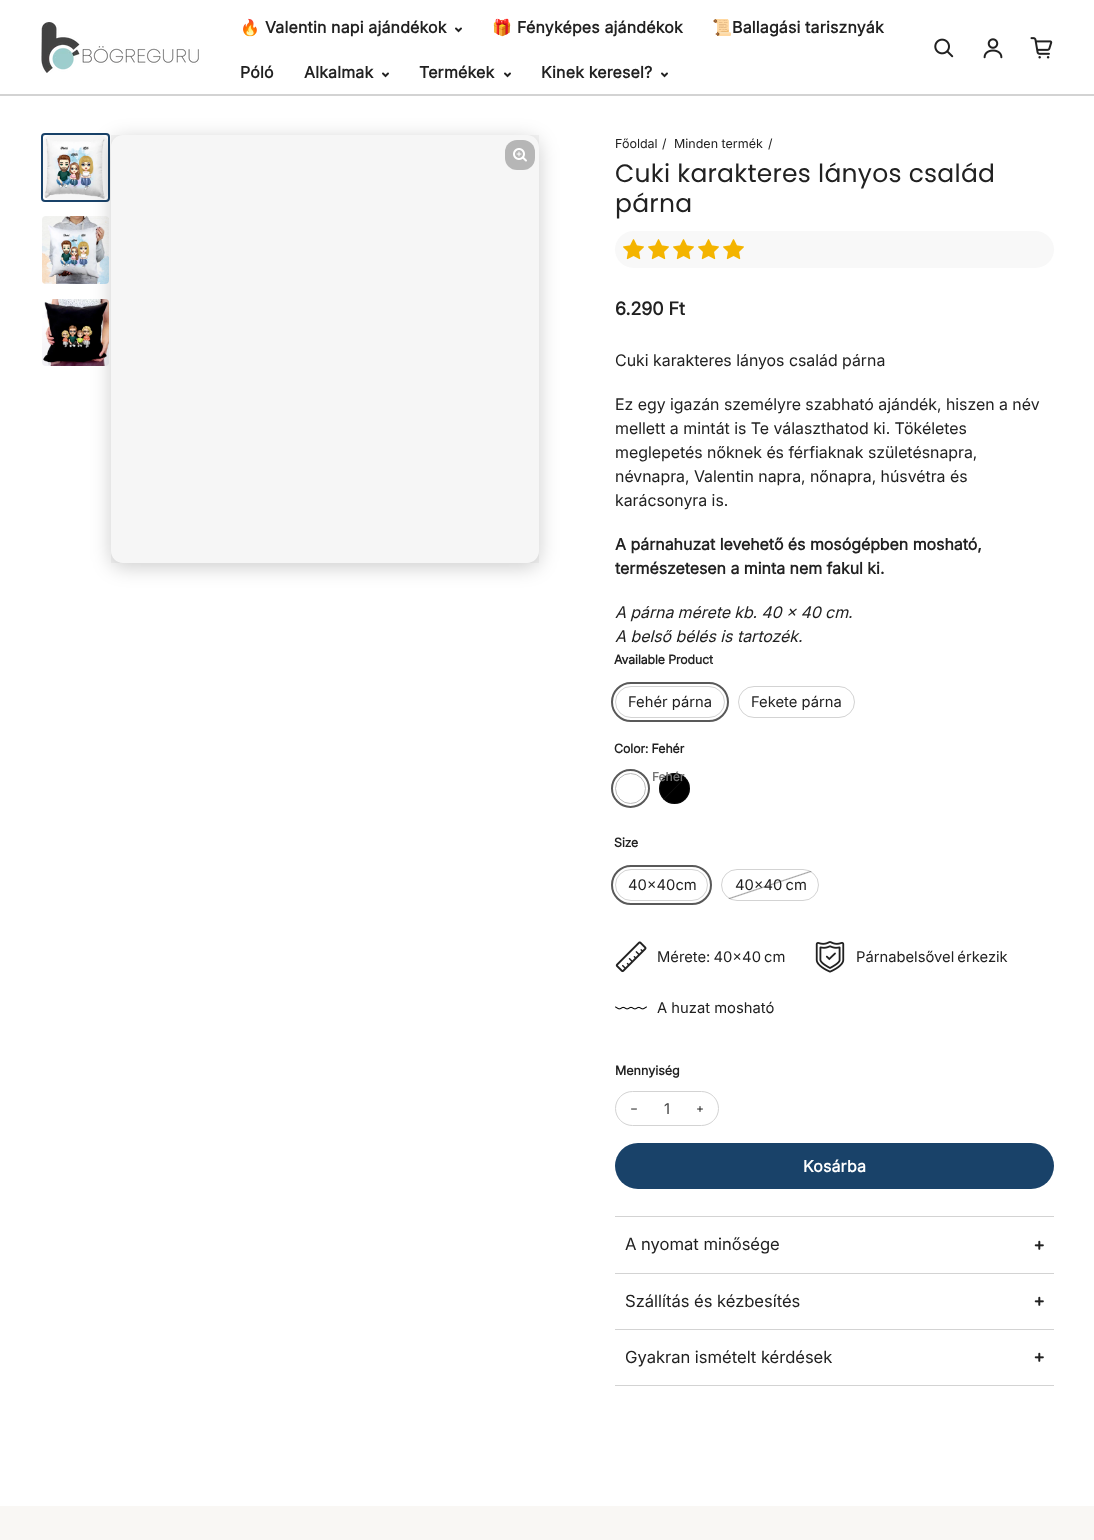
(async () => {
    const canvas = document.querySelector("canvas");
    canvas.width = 1094;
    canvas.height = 1540;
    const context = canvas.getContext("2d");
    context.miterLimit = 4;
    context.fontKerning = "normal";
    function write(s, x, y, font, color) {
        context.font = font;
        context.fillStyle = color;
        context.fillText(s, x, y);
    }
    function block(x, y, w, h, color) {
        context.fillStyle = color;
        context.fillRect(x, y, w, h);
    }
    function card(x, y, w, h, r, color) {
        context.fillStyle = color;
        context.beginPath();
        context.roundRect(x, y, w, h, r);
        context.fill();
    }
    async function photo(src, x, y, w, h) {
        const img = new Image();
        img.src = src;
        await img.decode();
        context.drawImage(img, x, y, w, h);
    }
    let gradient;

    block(0, 0, 1094, 1540, "rgb(255, 255, 255)");
    await photo("media/1.png", 41, 22, 158, 51);
    context.letterSpacing = "0.2px";
    write("🔥", 240, 33, "bold 16px Noto Color Emoji", "rgb(33, 33, 33)");
    write("Valentin napi ajándékok", 265, 33, "bold 16px 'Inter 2'", "rgb(33, 33, 33)");
    await photo("media/2.png", 455, 27, 7, 6);
    write("🎁", 492, 33, "bold 16px Noto Color Emoji", "rgb(33, 33, 33)");
    write("Fényképes ajándékok", 517, 33, "bold 16px 'Inter 2'", "rgb(33, 33, 33)");
    write("📜", 712, 33, "bold 16px Noto Color Emoji", "rgb(33, 33, 33)");
    write("Ballagási tarisznyák", 732, 33, "bold 16px 'Inter 2'", "rgb(33, 33, 33)");
    write("Póló", 240, 78, "bold 16px 'Inter 2'", "rgb(33, 33, 33)");
    write("Alkalmak", 304, 78, "bold 16px 'Inter 2'", "rgb(33, 33, 33)");
    await photo("media/2.png", 382, 72, 7, 6);
    write("Termékek", 419, 78, "bold 16px 'Inter 2'", "rgb(33, 33, 33)");
    await photo("media/2.png", 504, 72, 7, 6);
    write("Kinek keresel?", 541, 78, "bold 16px 'Inter 2'", "rgb(33, 33, 33)");
    await photo("media/2.png", 661, 72, 7, 6);
    await photo("media/3.png", 934, 38, 20, 20);
    await photo("media/4.png", 983, 38, 20, 21);
    await photo("media/5.png", 1030, 37, 23, 22);
    block(0, 94, 1094, 2, "rgb(211, 211, 211)");
    card(42, 134, 67, 67, 12, "rgb(246, 246, 246)");
    await photo("media/6.png", 44, 138, 61, 61);
    context.beginPath();
    context.roundRect(42, 134, 67, 67, 3);
    context.strokeStyle = "rgb(25, 66, 105)";
    context.lineWidth = 2;
    context.stroke();
    await photo("media/7.png", 42, 216, 67, 68);
    await photo("media/8.png", 42, 299, 67, 67);
    context.save();
    context.beginPath();
    context.moveTo(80, 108);
    context.lineTo(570, 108);
    context.lineTo(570, 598);
    context.lineTo(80, 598);
    context.closePath();
    context.moveTo(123, 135);
    context.lineTo(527, 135);
    context.bezierCurveTo(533.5, 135, 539, 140.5, 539, 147);
    context.lineTo(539, 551);
    context.bezierCurveTo(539, 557.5, 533.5, 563, 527, 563);
    context.lineTo(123, 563);
    context.bezierCurveTo(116.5, 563, 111, 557.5, 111, 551);
    context.lineTo(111, 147);
    context.bezierCurveTo(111, 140.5, 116.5, 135, 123, 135);
    context.closePath();
    context.clip("evenodd");
    context.fillStyle = "rgba(0, 0, 0, 0.2)";
    context.filter = "blur(10px)";
    context.beginPath();
    context.roundRect(111, 139, 428, 428, 12);
    context.fill();
    context.filter = "none";
    context.restore();
    block(111, 135, 428, 428, "rgba(33, 33, 33, 0.04)");
    card(505, 140, 30, 30, 12, "rgb(182, 182, 182)");
    await photo("media/9.png", 513, 148, 14, 14);
    context.letterSpacing = "0px";
    write("Főoldal", 615, 148, "12.5px Inter", "rgb(33, 33, 33)");
    write("/", 662, 148, "12.5px Inter", "rgb(33, 33, 33)");
    write("Minden termék", 674, 148, "12.5px Inter", "rgb(33, 33, 33)");
    write("/", 768, 148, "12.5px Inter", "rgb(33, 33, 33)");
    context.letterSpacing = "0.25px";
    write("Cuki karakteres lányos család", 615, 182, "25px Poppins", "rgb(33, 33, 33)");
    write("párna", 615, 212, "25px Poppins", "rgb(33, 33, 33)");
    card(615, 231, 439, 37, 18.5, "rgb(248, 248, 248)");
    await photo("media/10.png", 623, 239, 21, 21);
    await photo("media/10.png", 648, 239, 21, 21);
    await photo("media/10.png", 673, 239, 21, 21);
    await photo("media/10.png", 698, 239, 21, 21);
    await photo("media/10.png", 723, 239, 21, 21);
    context.letterSpacing = "0px";
    write("6.290 Ft", 615, 315, "bold 18px Inter", "rgb(33, 33, 33)");
    write("Cuki karakteres lányos család párna", 615, 366, "16px 'Inter 2'", "rgb(33, 33, 33)");
    write("Ez egy igazán személyre szabható ajándék, hiszen a név", 615, 410, "16px 'Inter 2'", "rgb(33, 33, 33)");
    write("mellett a mintát is Te választhatod ki. Tökéletes", 615, 434, "16px 'Inter 2'", "rgb(33, 33, 33)");
    write("meglepetés nőknek és férfiaknak születésnapra,", 615, 458, "16px 'Inter 2'", "rgb(33, 33, 33)");
    write("névnapra, Valentin napra, nőnapra, húsvétra és", 615, 482, "16px 'Inter 2'", "rgb(33, 33, 33)");
    write("karácsonyra is.", 615, 506, "16px 'Inter 2'", "rgb(33, 33, 33)");
    write("A párnahuzat levehető és mosógépben mosható,", 615, 550, "bold 16px 'Inter 2'", "rgb(33, 33, 33)");
    write("természetesen a minta nem fakul ki.", 615, 574, "bold 16px 'Inter 2'", "rgb(33, 33, 33)");
    context.wordSpacing = "-0.25px";
    write("A párna mérete kb. 40 x 40 cm.", 615, 618, "italic 16px Inter", "rgb(33, 33, 33)");
    context.wordSpacing = "0px";
    write("A belső bélés is tartozék.", 615, 642, "italic 16px Inter", "rgb(33, 33, 33)");
    write("Available Product", 614, 664, "bold 12.5px 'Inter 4'", "rgb(33, 33, 33)");
    context.beginPath();
    context.roundRect(615.5, 686.5, 109, 31, 15.5);
    context.strokeStyle = "rgb(211, 211, 211)";
    context.lineWidth = 1;
    context.stroke();
    context.beginPath();
    context.roundRect(612, 683, 116, 38, 19);
    context.strokeStyle = "rgb(89, 89, 89)";
    context.lineWidth = 2;
    context.stroke();
    write("Fehér párna", 628, 707, "14.75px Inter", "rgb(33, 33, 33)");
    context.beginPath();
    context.roundRect(738.5, 686.5, 116, 31, 15.5);
    context.strokeStyle = "rgb(211, 211, 211)";
    context.lineWidth = 1;
    context.stroke();
    write("Fekete párna", 751, 707, "14.75px Inter", "rgb(33, 33, 33)");
    write("Color: Fehér", 614, 753, "bold 12.5px 'Inter 4'", "rgb(33, 33, 33)");
    context.beginPath();
    context.arc(630.5, 788.5, 15, 0, Math.PI * 2);
    context.strokeStyle = "rgb(188, 188, 188)";
    context.stroke();
    context.beginPath();
    context.arc(630.5, 788.5, 18.5, 0, Math.PI * 2);
    context.strokeStyle = "rgb(89, 89, 89)";
    context.lineWidth = 2;
    context.stroke();
    context.fillStyle = "rgb(0, 0, 0)";
    context.beginPath();
    context.arc(674.5, 788.5, 15.5, 0, Math.PI * 2);
    context.fill();
    context.save();
    context.beginPath();
    context.roundRect(659, 773, 31, 31, 15.5);
    context.clip();
    gradient = context.createLinearGradient(660, 774, 689, 803);
    gradient.addColorStop(0.48, "rgba(33, 33, 33, 0)");
    gradient.addColorStop(0.5, "rgba(33, 33, 33, 0.4)");
    gradient.addColorStop(0.52, "rgba(33, 33, 33, 0)");
    context.fillStyle = gradient;
    context.fillRect(663, 777, 23, 23);
    context.restore();
    context.beginPath();
    context.arc(674.5, 788.5, 15, 0, Math.PI * 2);
    context.strokeStyle = "rgba(33, 33, 33, 0.3)";
    context.lineWidth = 1;
    context.stroke();
    write("Fehér", 652, 781, "bold 12px 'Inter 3'", "rgb(115, 115, 115)");
    write("Size", 614, 847, "bold 12.5px 'Inter 4'", "rgb(33, 33, 33)");
    context.beginPath();
    context.roundRect(615.5, 869.5, 92, 31, 15.5);
    context.strokeStyle = "rgb(211, 211, 211)";
    context.stroke();
    context.beginPath();
    context.roundRect(612, 866, 99, 38, 19);
    context.strokeStyle = "rgb(89, 89, 89)";
    context.lineWidth = 2;
    context.stroke();
    write("40x40cm", 628, 890, "14.75px Inter", "rgb(33, 33, 33)");
    context.save();
    context.beginPath();
    context.roundRect(721, 869, 98, 32, 16);
    context.clip();
    gradient = context.createLinearGradient(761, 858, 779, 912);
    gradient.addColorStop(0.48, "rgb(255, 255, 255)");
    gradient.addColorStop(0.5, "rgb(166, 166, 166)");
    gradient.addColorStop(0.52, "rgb(255, 255, 255)");
    context.fillStyle = gradient;
    context.fillRect(722, 870, 96, 30);
    context.restore();
    context.beginPath();
    context.roundRect(721.5, 869.5, 97, 31, 15.5);
    context.strokeStyle = "rgba(33, 33, 33, 0.2)";
    context.lineWidth = 1;
    context.stroke();
    context.wordSpacing = "-1px";
    write("40x40 cm", 735, 890, "14.75px Inter", "rgb(33, 33, 33)");
    await photo("media/11.png", 615, 941, 32, 32);
    write("Mérete: 40x40 cm", 657, 962, "14.75px Inter", "rgb(33, 33, 33)");
    await photo("media/12.png", 815, 941, 30, 32);
    write("Párnabelsővel érkezik", 856, 962, "14.75px Inter", "rgb(33, 33, 33)");
    await photo("media/13.png", 615, 1006, 32, 4);
    context.wordSpacing = "0px";
    write("A huzat mosható", 657, 1013, "14.75px Inter", "rgb(33, 33, 33)");
    write("Mennyiség", 615, 1075, "bold 12.5px 'Inter 3'", "rgb(33, 33, 33)");
    await photo("media/14.png", 631, 1108, 6, 2);
    await photo("media/15.png", 697, 1106, 6, 6);
    context.beginPath();
    context.roundRect(615.5, 1091.5, 103, 34, 17);
    context.strokeStyle = "rgb(211, 211, 211)";
    context.stroke();
    write("1", 664, 1114, "14.75px Inter", "rgb(66, 66, 66)");
    card(615, 1143, 439, 46, 23, "rgb(25, 66, 105)");
    context.letterSpacing = "0.2px";
    write("Kosárba", 803, 1172, "bold 16px 'Inter 2'", "rgb(255, 255, 255)");
    block(615, 1216, 439, 1, "rgb(211, 211, 211)");
    block(615, 1273, 439, 1, "rgb(211, 211, 211)");
    context.letterSpacing = "0px";
    write("A nyomat minősége", 625, 1250, "16.75px 'Inter 3'", "rgb(33, 33, 33)");
    await photo("media/16.png", 1034, 1240, 10, 10);
    block(615, 1329, 439, 1, "rgb(211, 211, 211)");
    write("Szállítás és kézbesítés", 625, 1307, "16.75px 'Inter 3'", "rgb(33, 33, 33)");
    await photo("media/16.png", 1034, 1296, 10, 10);
    block(615, 1385, 439, 1, "rgb(211, 211, 211)");
    write("Gyakran ismételt kérdések", 625, 1363, "16.75px 'Inter 3'", "rgb(33, 33, 33)");
    await photo("media/16.png", 1034, 1352, 10, 10);
    block(0, 1506, 1094, 34, "rgb(249, 247, 244)");
})();
